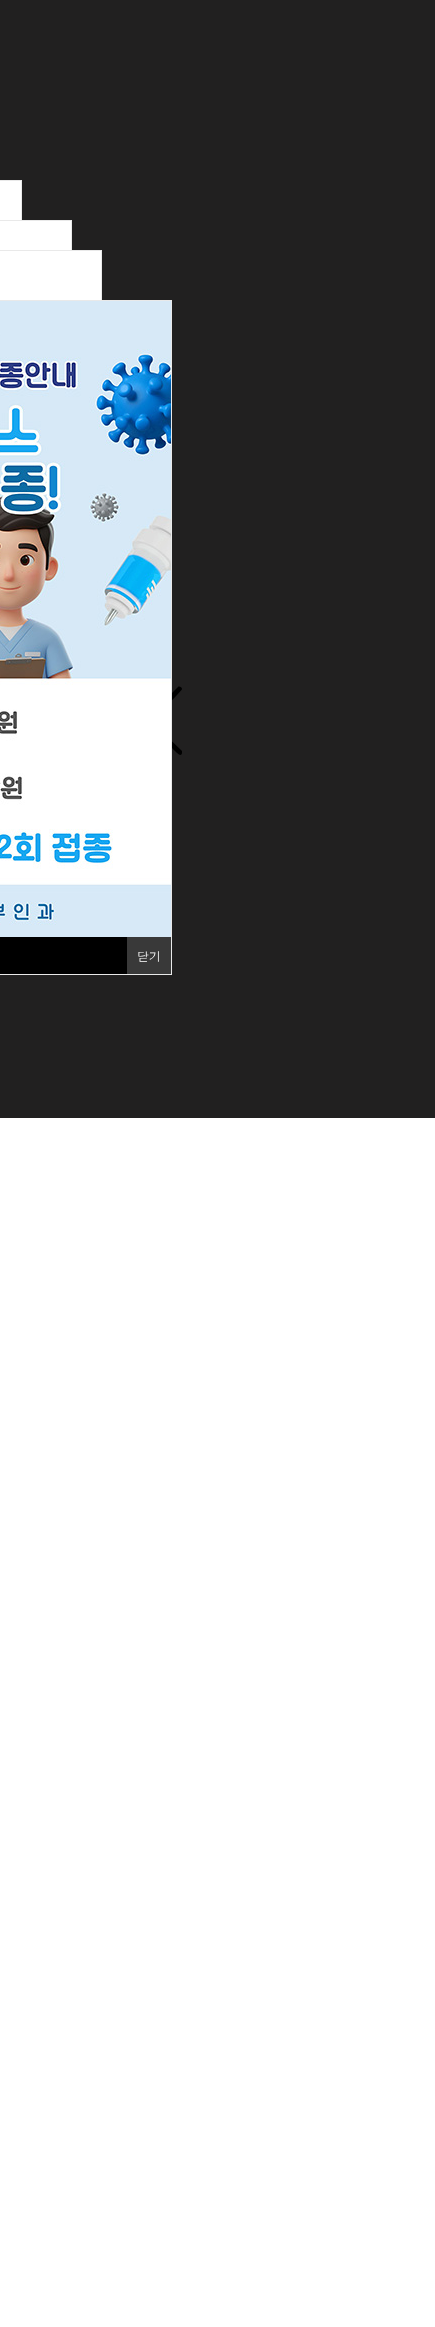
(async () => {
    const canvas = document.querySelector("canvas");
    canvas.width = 435;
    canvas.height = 2327;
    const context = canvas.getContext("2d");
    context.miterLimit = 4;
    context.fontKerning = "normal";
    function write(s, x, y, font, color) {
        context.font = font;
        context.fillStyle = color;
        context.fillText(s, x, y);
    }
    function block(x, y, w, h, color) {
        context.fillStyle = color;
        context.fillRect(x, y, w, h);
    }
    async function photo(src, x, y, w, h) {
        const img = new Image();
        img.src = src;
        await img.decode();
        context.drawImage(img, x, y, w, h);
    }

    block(0, 0, 435, 2327, "rgb(255, 255, 255)");
    block(0, 0, 435, 1118, "rgb(33, 32, 32)");
    context.fillStyle = "rgb(0, 0, 0)";
    context.beginPath();
    context.moveTo(178, 687);
    context.bezierCurveTo(179, 686, 182, 687, 182, 689);
    context.bezierCurveTo(182, 691, 155, 717, 151, 721);
    context.lineTo(182, 751);
    context.lineTo(182, 753);
    context.bezierCurveTo(181, 758, 176, 752, 173, 749);
    context.lineTo(152, 728);
    context.bezierCurveTo(144, 720, 144, 721, 152, 713);
    context.closePath();
    context.fill();
    block(0, 181, 21, 39, "rgb(255, 255, 255)");
    context.strokeStyle = "rgb(233, 233, 233)";
    context.strokeRect(-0.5, 180.5, 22, 598);
    block(0, 221, 71, 29, "rgb(255, 255, 255)");
    context.strokeRect(-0.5, 220.5, 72, 598);
    block(0, 251, 101, 49, "rgb(255, 255, 255)");
    context.strokeRect(-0.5, 250.5, 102, 598);
    context.strokeRect(-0.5, 300.5, 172, 674);
    await photo("media/1.png", 0, 301, 171, 636);
    block(0, 937, 127, 37, "rgb(0, 0, 0)");
    block(127, 937, 44, 37, "rgb(57, 57, 57)");
    write("닫기", 137, 961, "12px Dotum", "rgb(255, 255, 255)");
})();
